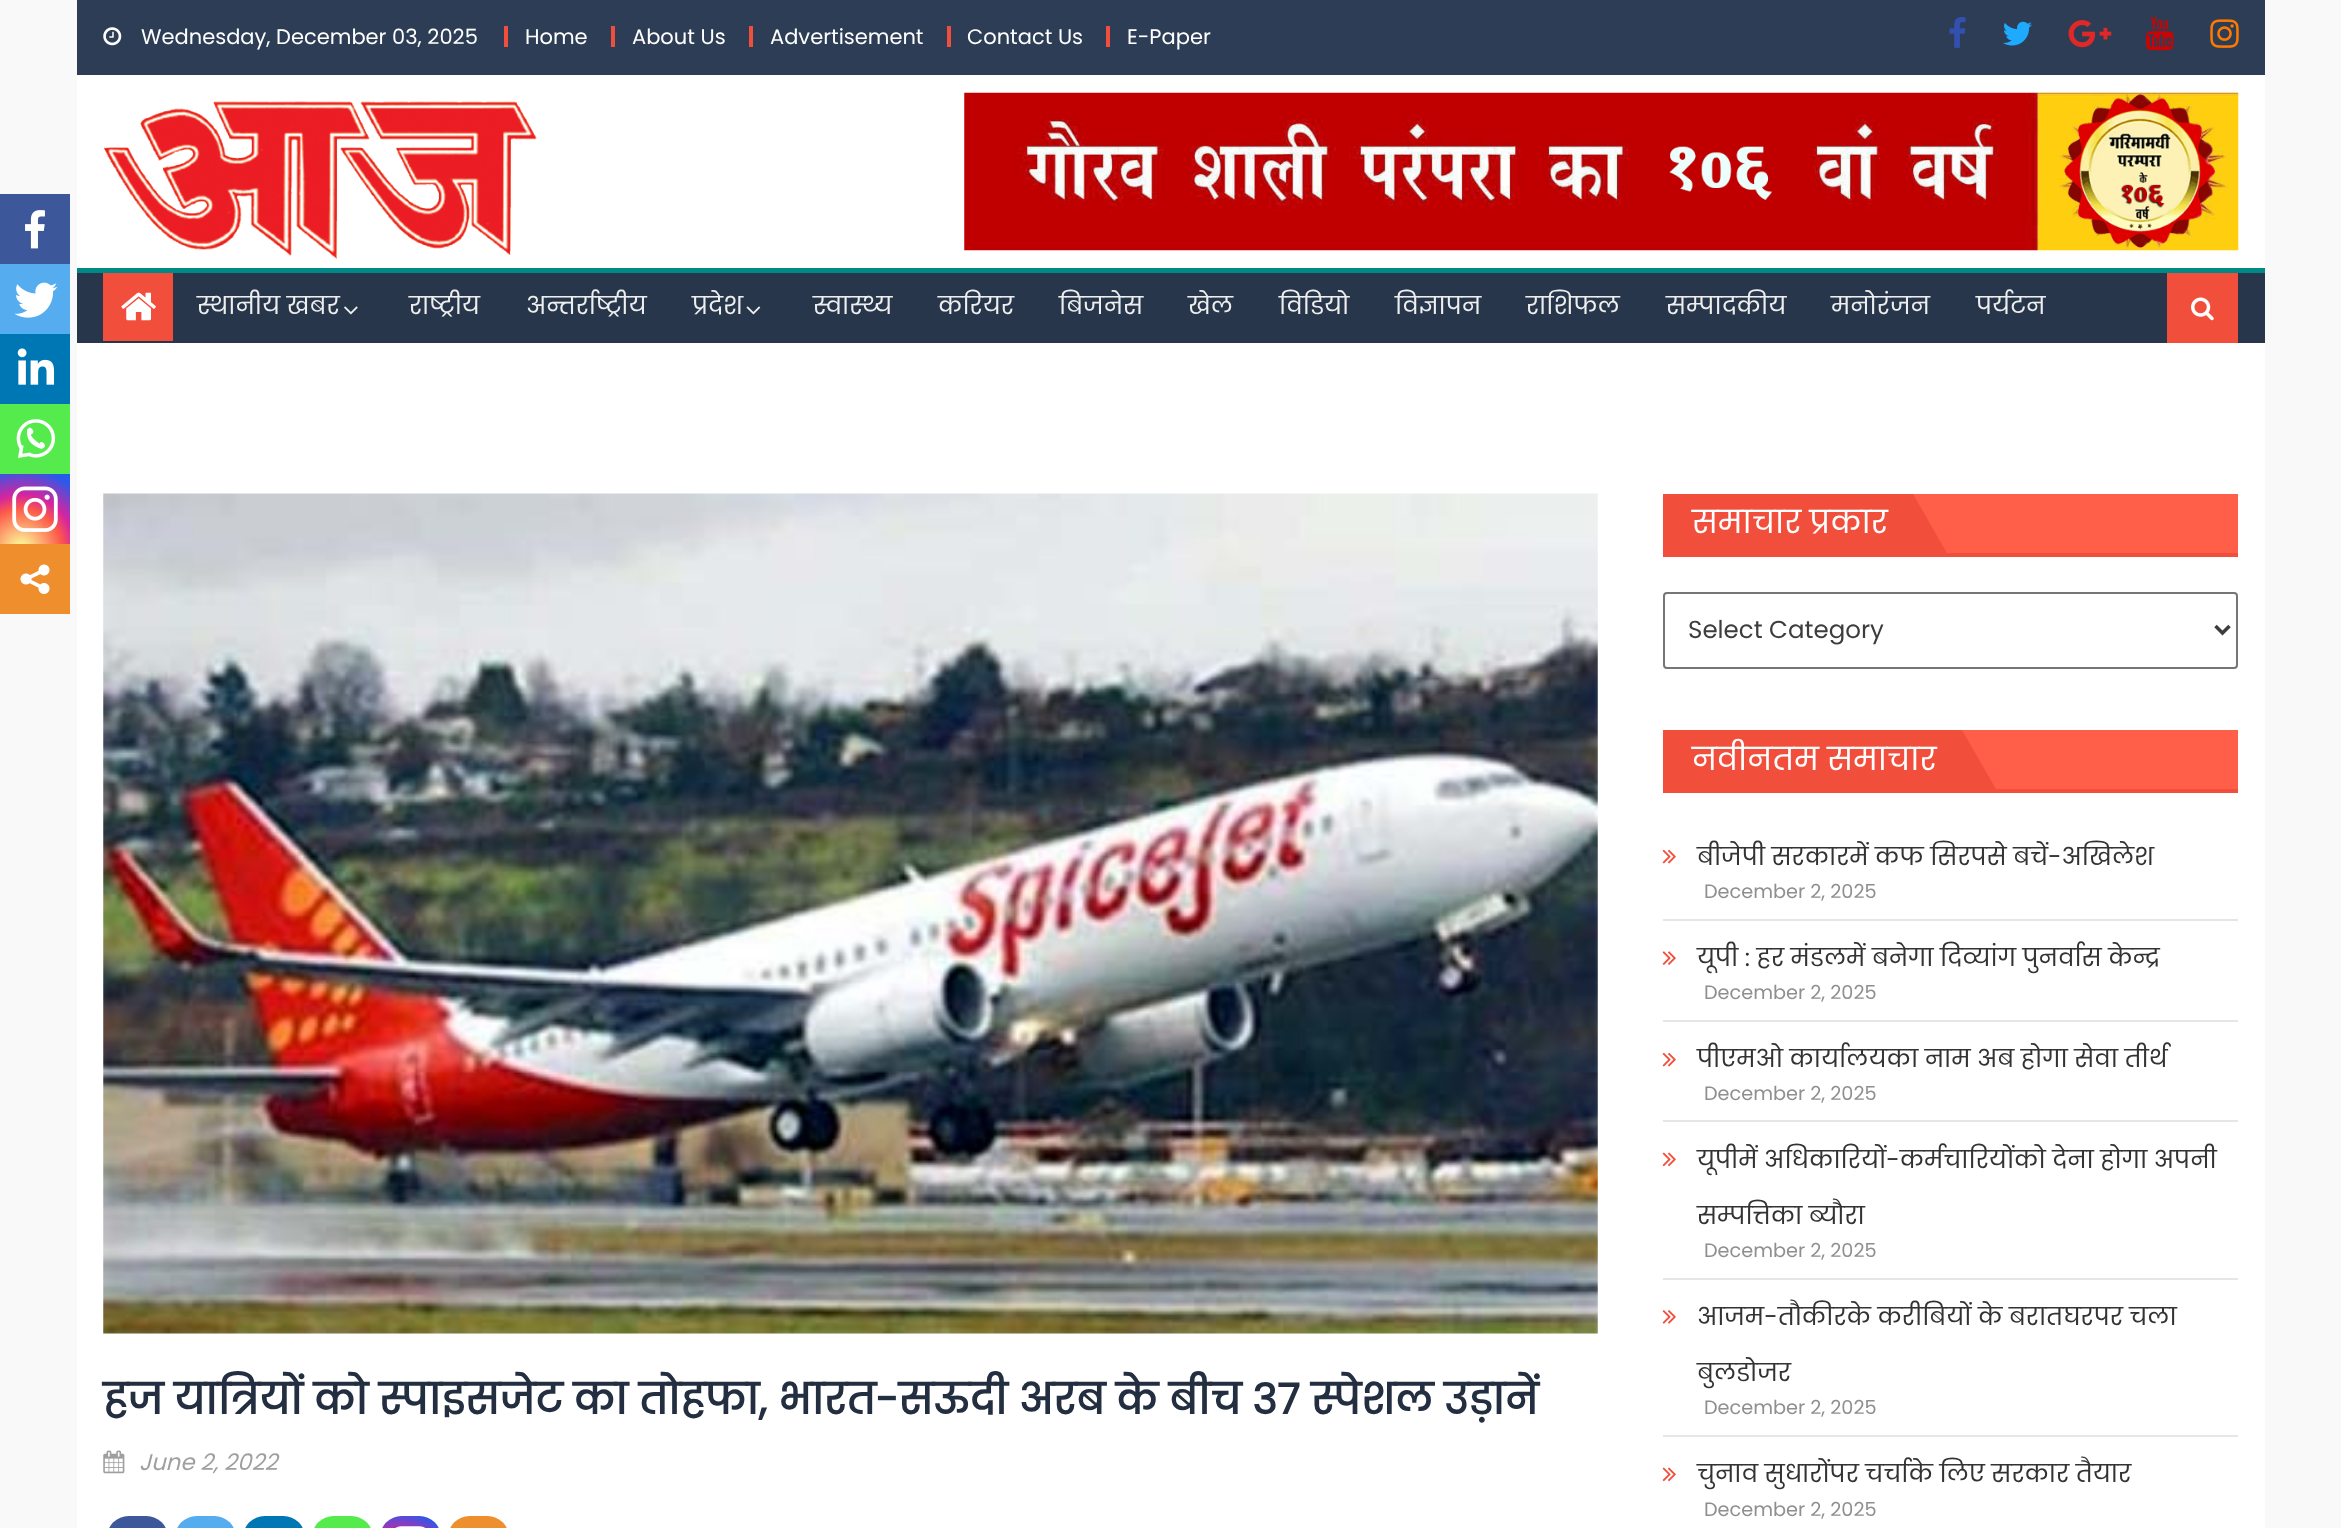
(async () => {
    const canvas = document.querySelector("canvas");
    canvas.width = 2341;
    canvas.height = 1528;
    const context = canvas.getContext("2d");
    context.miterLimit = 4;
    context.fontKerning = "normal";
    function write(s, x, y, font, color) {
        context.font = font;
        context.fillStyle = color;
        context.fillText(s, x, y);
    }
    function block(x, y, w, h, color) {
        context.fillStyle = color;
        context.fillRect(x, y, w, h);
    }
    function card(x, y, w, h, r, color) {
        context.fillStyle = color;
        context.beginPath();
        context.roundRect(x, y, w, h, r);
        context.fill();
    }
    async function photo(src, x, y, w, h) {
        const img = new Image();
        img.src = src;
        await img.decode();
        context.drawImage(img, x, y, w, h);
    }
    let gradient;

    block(0, 0, 2341, 1528, "rgb(249, 249, 249)");
    block(77, 75, 2188, 1453, "rgb(255, 255, 255)");
    block(77, 0, 2188, 75, "rgb(44, 61, 85)");
    await photo("media/1.png", 103, 27, 19, 19);
    write("Wednesday, December 03, 2025", 141, 44, "21px Poppins", "rgb(255, 255, 255)");
    block(504, 26, 4, 21, "rgb(242, 78, 60)");
    write("Home", 525, 44, "21px Poppins", "rgb(255, 255, 255)");
    block(611, 26, 4, 21, "rgb(242, 78, 60)");
    write("About Us", 632, 44, "21px Poppins", "rgb(255, 255, 255)");
    block(749, 26, 4, 21, "rgb(242, 78, 60)");
    write("Advertisement", 770, 44, "21px Poppins", "rgb(255, 255, 255)");
    block(947, 26, 4, 21, "rgb(242, 78, 60)");
    write("Contact Us", 967, 44, "21px Poppins", "rgb(255, 255, 255)");
    block(1106, 26, 4, 21, "rgb(242, 78, 60)");
    write("E-Paper", 1127, 44, "21px Poppins", "rgb(255, 255, 255)");
    await photo("media/2.png", 1949, 17, 17, 31);
    await photo("media/3.png", 2003, 21, 29, 25);
    await photo("media/4.png", 2068, 20, 44, 28);
    await photo("media/5.png", 2146, 17, 28, 34);
    await photo("media/6.png", 2210, 19, 29, 29);
    await photo("media/7.png", 104, 101, 433, 158);
    await photo("media/8.png", 964, 92, 1275, 159);
    block(77, 273, 2188, 70, "rgb(39, 54, 74)");
    block(77, 268, 2188, 5, "rgb(0, 137, 135)");
    block(103, 273, 70, 68, "rgb(242, 78, 60)");
    await photo("media/9.png", 121, 292, 35, 29);
    write("स्थानीय खबर", 197, 314, "24.5px Poppins", "rgb(238, 238, 238)");
    await photo("media/10.png", 344, 306, 14, 9);
    write("राष्ट्रीय", 409, 314, "24.5px Poppins", "rgb(238, 238, 238)");
    write("अन्तर्राष्ट्रीय", 526, 314, "24.5px Poppins", "rgb(238, 238, 238)");
    write("प्रदेश", 692, 314, "24.5px Poppins", "rgb(238, 238, 238)");
    await photo("media/11.png", 746, 306, 15, 9);
    write("स्वास्थ्य", 813, 314, "24.5px Poppins", "rgb(238, 238, 238)");
    write("करियर", 938, 314, "24.5px Poppins", "rgb(238, 238, 238)");
    write("बिजनेस", 1059, 314, "24.5px Poppins", "rgb(238, 238, 238)");
    write("खेल", 1188, 314, "24.5px Poppins", "rgb(238, 238, 238)");
    write("विडियो", 1279, 314, "24.5px Poppins", "rgb(238, 238, 238)");
    write("विज्ञापन", 1395, 314, "24.5px Poppins", "rgb(238, 238, 238)");
    write("राशिफल", 1526, 314, "24.5px Poppins", "rgb(238, 238, 238)");
    write("सम्पादकीय", 1666, 314, "24.5px Poppins", "rgb(238, 238, 238)");
    write("मनोरंजन", 1831, 314, "24.5px Poppins", "rgb(238, 238, 238)");
    write("पर्यटन", 1976, 314, "24.5px Poppins", "rgb(238, 238, 238)");
    block(2167, 273, 71, 70, "rgb(242, 78, 60)");
    await photo("media/12.png", 2191, 297, 23, 24);
    block(0, 194, 70, 70, "rgb(60, 88, 154)");
    await photo("media/13.png", 25, 210, 20, 39);
    block(0, 264, 70, 70, "rgb(85, 172, 238)");
    await photo("media/14.png", 14, 282, 44, 36);
    block(0, 334, 70, 70, "rgb(0, 119, 181)");
    await photo("media/15.png", 17, 348, 38, 37);
    block(0, 404, 70, 70, "rgb(85, 235, 76)");
    await photo("media/16.png", 16, 419, 40, 39);
    gradient = context.createRadialGradient(21, 549, 0, 21, 549, 90);
    gradient.addColorStop(0, "rgb(253, 244, 151)");
    gradient.addColorStop(0.05, "rgb(253, 244, 151)");
    gradient.addColorStop(0.45, "rgb(253, 89, 73)");
    gradient.addColorStop(0.6, "rgb(214, 36, 159)");
    gradient.addColorStop(0.9, "rgb(40, 90, 235)");
    context.fillStyle = gradient;
    context.fillRect(0, 474, 70, 70);
    await photo("media/17.png", 12, 486, 46, 46);
    block(0, 544, 70, 70, "rgb(238, 142, 45)");
    await photo("media/18.png", 20, 564, 30, 30);
    card(107, 1516, 61, 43, 30.5, "rgb(60, 88, 154)");
    card(175, 1516, 61, 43, 30.5, "rgb(85, 172, 238)");
    card(243, 1516, 62, 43, 30.5, "rgb(0, 119, 181)");
    block(262, 1527, 2, 1, "rgb(8, 123, 183)");
    card(312, 1516, 61, 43, 30.5, "rgb(85, 235, 76)");
    gradient = context.createRadialGradient(398, 1581, 0, 398, 1581, 78);
    gradient.addColorStop(0, "rgb(253, 244, 151)");
    gradient.addColorStop(0.05, "rgb(253, 244, 151)");
    gradient.addColorStop(0.45, "rgb(253, 89, 73)");
    gradient.addColorStop(0.6, "rgb(214, 36, 159)");
    gradient.addColorStop(0.9, "rgb(40, 90, 235)");
    context.fillStyle = gradient;
    context.beginPath();
    context.roundRect(380, 1516, 61, 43, 30.5);
    context.fill();
    await photo("media/19.png", 395, 1526, 31, 2);
    card(448, 1516, 61, 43, 30.5, "rgb(238, 142, 45)");
    await photo("media/20.png", 103, 493, 1495, 841);
    write("हज यात्रियों को स्पाइसजेट का तोहफा, भारत-सऊदी अरब के बीच 37 स्पेशल उड़ानें", 103, 1414, "bold 42px Poppins", "rgb(35, 47, 64)");
    await photo("media/21.png", 103, 1450, 22, 24);
    write("June 2, 2022", 139, 1470, "italic 22.75px Poppins", "rgb(159, 159, 159)");
    block(1913, 494, 325, 59, "rgb(255, 94, 72)");
    block(1663, 553, 575, 4, "rgb(242, 78, 60)");
    block(1663, 494, 4, 63, "rgb(242, 78, 60)");
    block(1667, 494, 246, 59, "rgb(242, 78, 60)");
    write("समाचार प्रकार", 1692, 533, "31.5px Poppins", "rgb(255, 255, 255)");
    context.fillStyle = "rgb(242, 78, 60)";
    context.beginPath();
    context.moveTo(1948, 555);
    context.lineTo(1913, 555);
    context.lineTo(1913, 494);
    context.closePath();
    context.fill();
    context.beginPath();
    context.roundRect(1664, 593, 573, 75, 3);
    context.strokeStyle = "rgb(118, 118, 118)";
    context.lineWidth = 2;
    context.stroke();
    context.beginPath();
    context.moveTo(2215.5, 626);
    context.lineTo(2222.5, 633);
    context.lineTo(2229.5, 626);
    context.strokeStyle = "rgb(61, 61, 61)";
    context.lineWidth = 3.5;
    context.stroke();
    write("Select Category", 1688, 638, "24.5px Poppins", "rgb(61, 61, 61)");
    block(1962, 730, 276, 59, "rgb(255, 94, 72)");
    block(1663, 789, 575, 4, "rgb(242, 78, 60)");
    block(1663, 730, 4, 63, "rgb(242, 78, 60)");
    block(1667, 730, 295, 59, "rgb(242, 78, 60)");
    write("नवीनतम समाचार", 1692, 770, "31.5px Poppins", "rgb(255, 255, 255)");
    context.fillStyle = "rgb(242, 78, 60)";
    context.beginPath();
    context.moveTo(1997, 791);
    context.lineTo(1962, 791);
    context.lineTo(1962, 730);
    context.closePath();
    context.fill();
    block(1663, 919, 575, 2, "rgb(230, 230, 230)");
    await photo("media/22.png", 1662, 849, 14, 15);
    write("बीजेपी सरकारमें कफ सिरपसे बचें-अखिलेश", 1697, 865, "24.5px Poppins", "rgb(51, 51, 51)");
    write("December 2, 2025", 1704, 898, "19.25px Poppins", "rgb(143, 143, 143)");
    block(1663, 1020, 575, 2, "rgb(230, 230, 230)");
    await photo("media/23.png", 1662, 951, 14, 14);
    write("यूपी : हर मंडलमें बनेगा दिव्यांग पुनर्वास केन्द्र", 1697, 966, "24.5px Poppins", "rgb(51, 51, 51)");
    write("December 2, 2025", 1704, 999, "19.25px Poppins", "rgb(143, 143, 143)");
    block(1663, 1120, 575, 2, "rgb(230, 230, 230)");
    await photo("media/22.png", 1662, 1052, 14, 15);
    write("पीएमओ कार्यालयका नाम अब होगा सेवा तीर्थ", 1697, 1067, "24.5px Poppins", "rgb(51, 51, 51)");
    write("December 2, 2025", 1704, 1100, "19.25px Poppins", "rgb(143, 143, 143)");
    block(1663, 1278, 575, 2, "rgb(230, 230, 230)");
    await photo("media/24.png", 1662, 1152, 14, 15);
    write("यूपीमें अधिकारियों-कर्मचारियोंको देना होगा अपनी", 1697, 1168, "24.5px Poppins", "rgb(51, 51, 51)");
    write("सम्पत्तिका ब्यौरा", 1697, 1224, "24.5px Poppins", "rgb(51, 51, 51)");
    write("December 2, 2025", 1704, 1257, "19.25px Poppins", "rgb(143, 143, 143)");
    block(1663, 1435, 575, 2, "rgb(230, 230, 230)");
    await photo("media/25.png", 1662, 1310, 14, 14);
    write("आजम-तौकीरके करीबियों के बरातघरपर चला", 1697, 1325, "24.5px Poppins", "rgb(51, 51, 51)");
    write("बुलडोजर", 1697, 1381, "24.5px Poppins", "rgb(51, 51, 51)");
    write("December 2, 2025", 1704, 1414, "19.25px Poppins", "rgb(143, 143, 143)");
    await photo("media/24.png", 1662, 1467, 14, 15);
    write("चुनाव सुधारोंपर चर्चाके लिए सरकार तैयार", 1697, 1482, "24.5px Poppins", "rgb(51, 51, 51)");
    write("December 2, 2025", 1704, 1516, "19.25px Poppins", "rgb(143, 143, 143)");
})();
